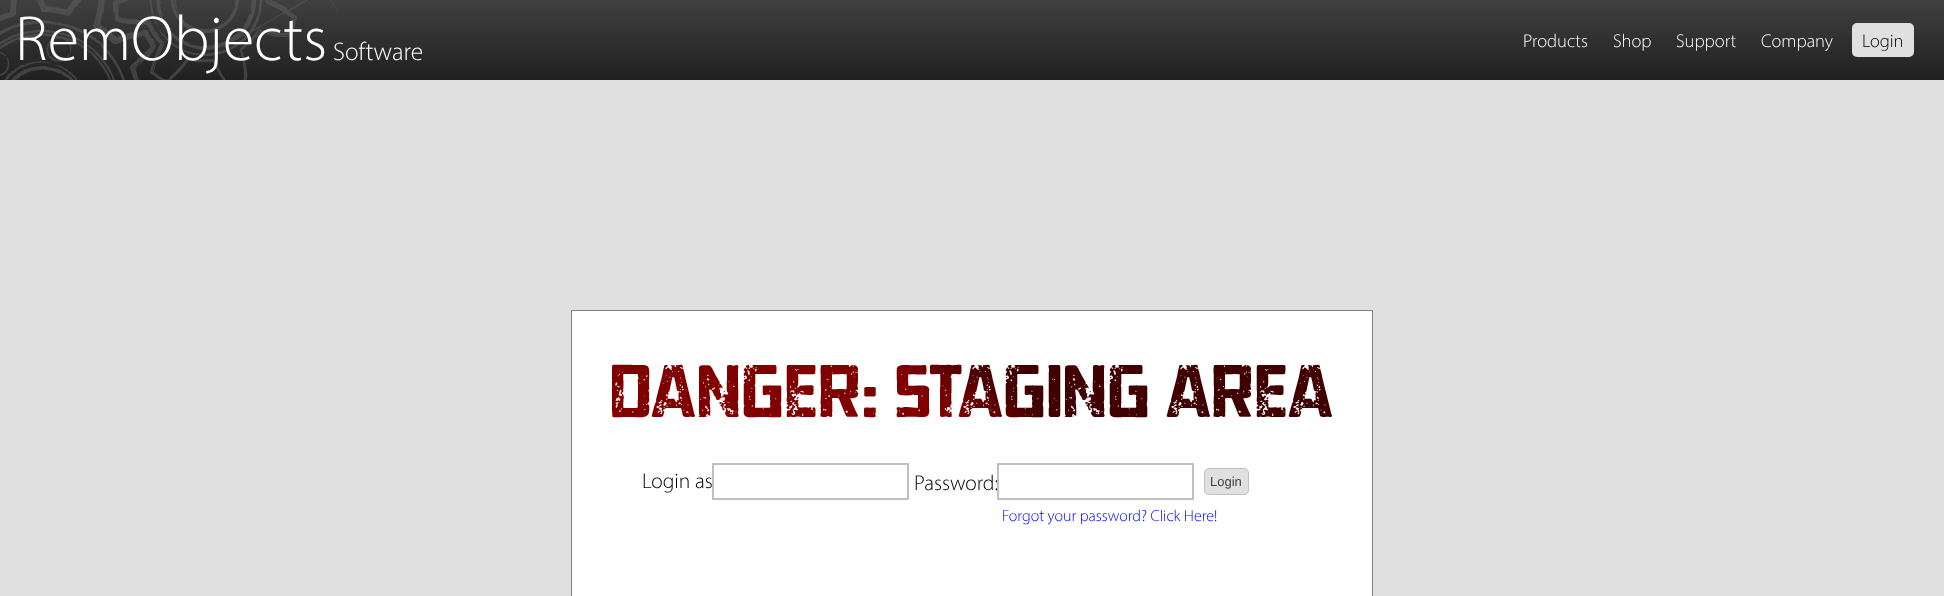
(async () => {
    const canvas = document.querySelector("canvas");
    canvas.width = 1944;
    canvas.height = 596;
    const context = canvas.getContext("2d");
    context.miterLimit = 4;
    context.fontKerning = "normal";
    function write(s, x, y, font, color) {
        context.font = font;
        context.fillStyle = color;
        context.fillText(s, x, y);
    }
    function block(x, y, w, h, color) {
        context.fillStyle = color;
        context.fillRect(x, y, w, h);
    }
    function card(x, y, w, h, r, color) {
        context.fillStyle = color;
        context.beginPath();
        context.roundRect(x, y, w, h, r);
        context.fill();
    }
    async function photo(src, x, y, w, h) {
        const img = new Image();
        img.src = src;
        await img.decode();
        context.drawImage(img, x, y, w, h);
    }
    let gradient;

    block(0, 0, 1944, 596, "rgb(224, 224, 224)");
    gradient = context.createLinearGradient(972, 0, 972, 80);
    gradient.addColorStop(0, "rgb(64, 64, 64)");
    gradient.addColorStop(1, "rgb(32, 32, 32)");
    context.fillStyle = gradient;
    context.fillRect(0, 0, 1944, 80);
    await photo("media/1.png", 0, 0, 338, 80);
    write("RemObjects", 15, 60, "300 64px Myriad", "rgb(255, 255, 255)");
    write("Software", 333, 60, "300 25.5px Myriad", "rgb(255, 255, 255)");
    write("Products", 1523, 47, "300 18.5px Myriad", "rgb(255, 255, 255)");
    write("Shop", 1613, 47, "300 18.5px Myriad", "rgb(255, 255, 255)");
    write("Support", 1676, 47, "300 18.5px Myriad", "rgb(255, 255, 255)");
    write("Company", 1761, 47, "300 18.5px Myriad", "rgb(255, 255, 255)");
    card(1852, 23, 62, 34, 5, "rgb(224, 224, 224)");
    write("Login", 1862, 47, "300 18.5px Myriad", "rgb(0, 0, 0)");
    context.fillStyle = "rgb(255, 255, 255)";
    context.beginPath();
    context.rect(571.5, 310.5, 801, 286);
    context.fill();
    context.strokeStyle = "rgb(128, 128, 128)";
    context.stroke();
    await photo("media/2.png", 612, 364, 720, 54);
    write("Login as", 642, 488, "300 21.5px Myriad", "rgb(0, 0, 0)");
    context.strokeStyle = "rgb(192, 192, 192)";
    context.lineWidth = 2;
    context.strokeRect(713, 464, 195, 35);
    write("Password:", 914, 490, "300 21.5px Myriad", "rgb(0, 0, 0)");
    context.strokeRect(998, 464, 195, 35);
    context.fillStyle = "rgb(224, 224, 224)";
    context.beginPath();
    context.roundRect(1204.5, 468.5, 44, 26, 4.5);
    context.fill();
    context.lineWidth = 1;
    context.stroke();
    write("Login", 1210, 486, "13px Liberation Sans", "rgb(64, 64, 64)");
    write("Forgot your password? Click Here!", 1002, 521, "300 16px Myriad", "rgb(0, 0, 255)");
})();
